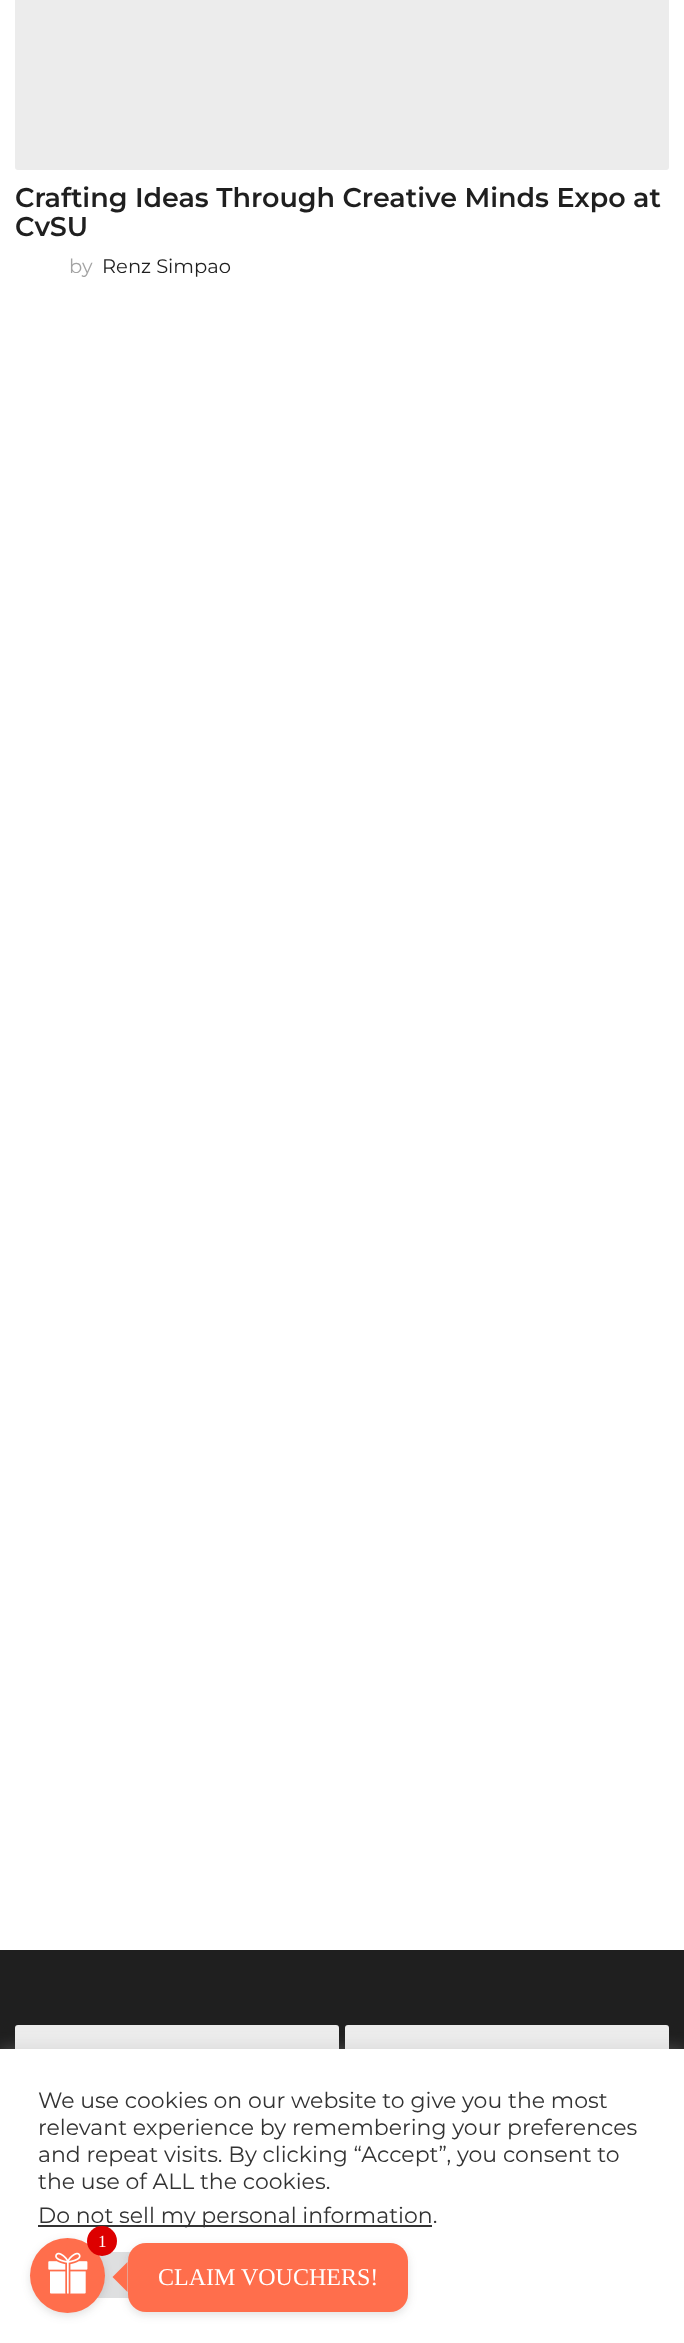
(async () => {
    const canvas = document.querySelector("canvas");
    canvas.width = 684;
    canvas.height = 2343;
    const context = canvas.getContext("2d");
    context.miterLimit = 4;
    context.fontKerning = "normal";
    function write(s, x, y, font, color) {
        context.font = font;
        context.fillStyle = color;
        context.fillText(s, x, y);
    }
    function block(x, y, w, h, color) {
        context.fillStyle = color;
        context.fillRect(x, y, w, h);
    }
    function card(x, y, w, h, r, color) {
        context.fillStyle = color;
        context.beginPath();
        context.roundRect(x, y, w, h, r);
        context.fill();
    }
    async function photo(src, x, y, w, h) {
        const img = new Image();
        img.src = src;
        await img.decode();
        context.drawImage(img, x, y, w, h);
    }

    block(0, 0, 684, 2343, "rgb(255, 255, 255)");
    card(15, -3, 654, 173, 3, "rgb(236, 236, 236)");
    write("Crafting Ideas Through Creative Minds Expo at", 15, 207, "600 27px Montserrat", "rgb(31, 31, 31)");
    write("CvSU", 15, 236, "600 27px Montserrat", "rgb(31, 31, 31)");
    write("by", 69, 273, "19.5px Montserrat", "rgb(163, 163, 163)");
    write("Renz Simpao", 102, 273, "19.5px Montserrat", "rgb(31, 31, 31)");
    block(0, 1950, 684, 99, "rgb(31, 31, 31)");
    card(15, 2025, 324, 243, 3, "rgb(236, 236, 236)");
    card(345, 2025, 324, 243, 3, "rgb(236, 236, 236)");
    context.fillStyle = "rgba(172, 171, 171, 0.3)";
    context.filter = "blur(7.5px)";
    context.beginPath();
    context.rect(0, 2048, 684, 294);
    context.fill();
    context.filter = "none";
    block(0, 2049, 684, 294, "rgb(255, 255, 255)");
    write("We use cookies on our website to give you the most", 38, 2108, "22px Montserrat", "rgb(51, 51, 51)");
    write("relevant experience by remembering your preferences", 38, 2135, "22px Montserrat", "rgb(51, 51, 51)");
    write("and repeat visits. By clicking “Accept”, you consent to", 38, 2162, "22px Montserrat", "rgb(51, 51, 51)");
    write("the use of ALL the cookies.", 38, 2189, "22px Montserrat", "rgb(51, 51, 51)");
    block(38, 2225, 394, 2, "rgb(51, 51, 51)");
    write("Do not sell my personal information.", 38, 2223, "22px Montserrat", "rgb(51, 51, 51)");
    block(97, 2252, 34, 46, "rgb(222, 223, 224)");
    context.fillStyle = "rgba(52, 52, 52, 0.15)";
    context.filter = "blur(4px)";
    context.beginPath();
    context.roundRect(128, 2246, 280, 69, 18);
    context.fill();
    context.filter = "none";
    context.fillStyle = "rgb(255, 110, 76)";
    context.beginPath();
    context.moveTo(127.5, 2262);
    context.lineTo(127.5, 2292);
    context.lineTo(112.5, 2277);
    context.closePath();
    context.fill();
    context.fillStyle = "rgba(52, 52, 52, 0.15)";
    context.filter = "blur(4px)";
    context.beginPath();
    context.roundRect(30, 2241, 75, 75, 37.5);
    context.fill();
    context.filter = "none";
    context.fillStyle = "rgb(255, 110, 76)";
    context.beginPath();
    context.arc(67.5, 2275.5, 37.5, 0, Math.PI * 2);
    context.fill();
    await photo("media/1.png", 48, 2252, 40, 42);
    context.fillStyle = "rgb(221, 0, 0)";
    context.beginPath();
    context.arc(102, 2241, 15, 0, Math.PI * 2);
    context.fill();
    write("1", 98, 2247, "17px Liberation Serif", "rgb(255, 255, 255)");
    card(128, 2243, 280, 69, 18, "rgb(255, 110, 76)");
    write("CLAIM VOUCHERS!", 158, 2285, "24px Liberation Serif", "rgb(255, 255, 255)");
})();
